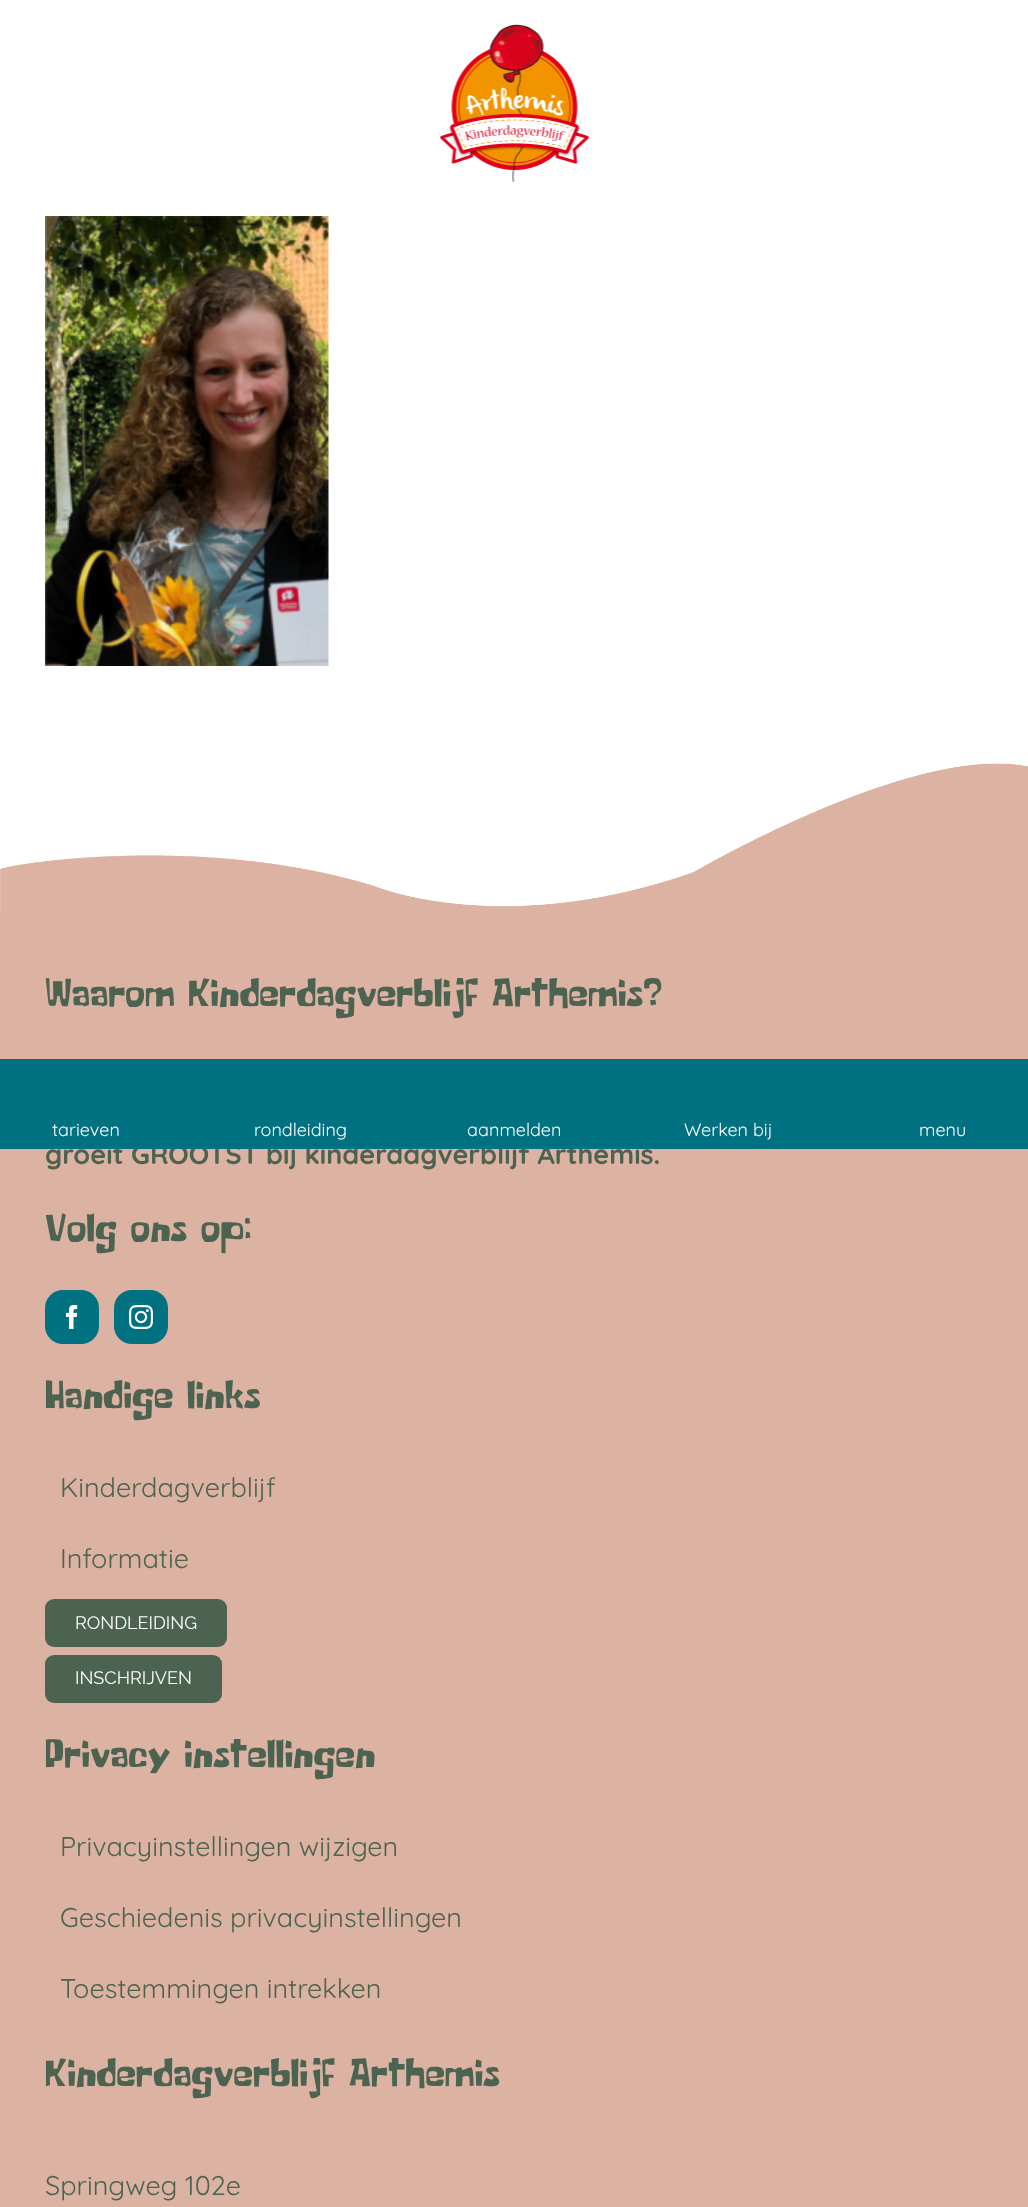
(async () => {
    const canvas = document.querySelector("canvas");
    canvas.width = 1028;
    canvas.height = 2207;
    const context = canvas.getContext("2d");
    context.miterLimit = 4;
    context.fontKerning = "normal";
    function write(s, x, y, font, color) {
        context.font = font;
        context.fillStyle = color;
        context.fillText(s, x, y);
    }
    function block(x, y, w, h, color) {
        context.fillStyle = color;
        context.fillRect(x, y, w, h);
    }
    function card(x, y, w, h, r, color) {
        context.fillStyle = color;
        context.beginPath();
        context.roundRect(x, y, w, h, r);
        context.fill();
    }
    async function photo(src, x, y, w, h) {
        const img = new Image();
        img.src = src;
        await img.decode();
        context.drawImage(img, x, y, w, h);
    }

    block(0, 0, 1028, 2207, "rgb(255, 255, 255)");
    await photo("media/1.png", 439, 24, 151, 158);
    await photo("media/2.png", 45, 216, 284, 450);
    await photo("media/3.png", 0, 763, 1028, 149);
    block(0, 912, 1028, 1295, "rgb(220, 178, 162)");
    write("Waarom Kinderdagverblijf Arthemis?", 45, 1006, "40.1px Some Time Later", "rgb(76, 99, 81)");
    write("groeit GROOTST bij kinderdagverblijf Arthemis.", 45, 1164, "bold 27px Quicksand", "rgb(76, 99, 81)");
    write("Volg ons op:", 45, 1241, "40.1px Some Time Later", "rgb(76, 99, 81)");
    card(45, 1290, 54, 54, 18, "rgb(0, 113, 128)");
    await photo("media/4.png", 66, 1305, 12, 24);
    card(114, 1290, 54, 54, 18, "rgb(0, 113, 128)");
    await photo("media/5.png", 129, 1305, 24, 24);
    write("Handige links", 45, 1408, "40.1px Some Time Later", "rgb(76, 99, 81)");
    write("Kinderdagverblijf", 60, 1497, "27px Quicksand", "rgb(76, 99, 81)");
    write("Informatie", 60, 1568, "27px Quicksand", "rgb(76, 99, 81)");
    card(45, 1599, 182, 48, 9, "rgb(76, 99, 81)");
    write("RONDLEIDING", 75, 1629, "100 18px Raleway", "rgb(255, 255, 255)");
    card(45, 1655, 177, 48, 9, "rgb(76, 99, 81)");
    write("INSCHRIJVEN", 75, 1684, "100 18px Raleway", "rgb(255, 255, 255)");
    write("Privacy instellingen", 45, 1767, "40.1px Some Time Later", "rgb(76, 99, 81)");
    write("Privacyinstellingen wijzigen", 60, 1856, "27px Quicksand", "rgb(76, 99, 81)");
    write("Geschiedenis privacyinstellingen", 60, 1927, "27px Quicksand", "rgb(76, 99, 81)");
    write("Toestemmingen intrekken", 60, 1998, "27px Quicksand", "rgb(76, 99, 81)");
    write("Kinderdagverblijf Arthemis", 45, 2086, "40.1px Some Time Later", "rgb(76, 99, 81)");
    write("Springweg 102e", 45, 2195, "27px Quicksand", "rgb(76, 99, 81)");
    block(0, 1059, 1028, 90, "rgb(0, 113, 128)");
    write("tarieven", 52, 1136, "18px Quicksand", "rgb(255, 255, 255)");
    write("rondleiding", 254, 1136, "18px Quicksand", "rgb(255, 255, 255)");
    write("aanmelden", 467, 1136, "18px Quicksand", "rgb(255, 255, 255)");
    write("Werken bij", 684, 1136, "18px Quicksand", "rgb(255, 255, 255)");
    write("menu", 919, 1136, "18px Quicksand", "rgb(255, 255, 255)");
})();
